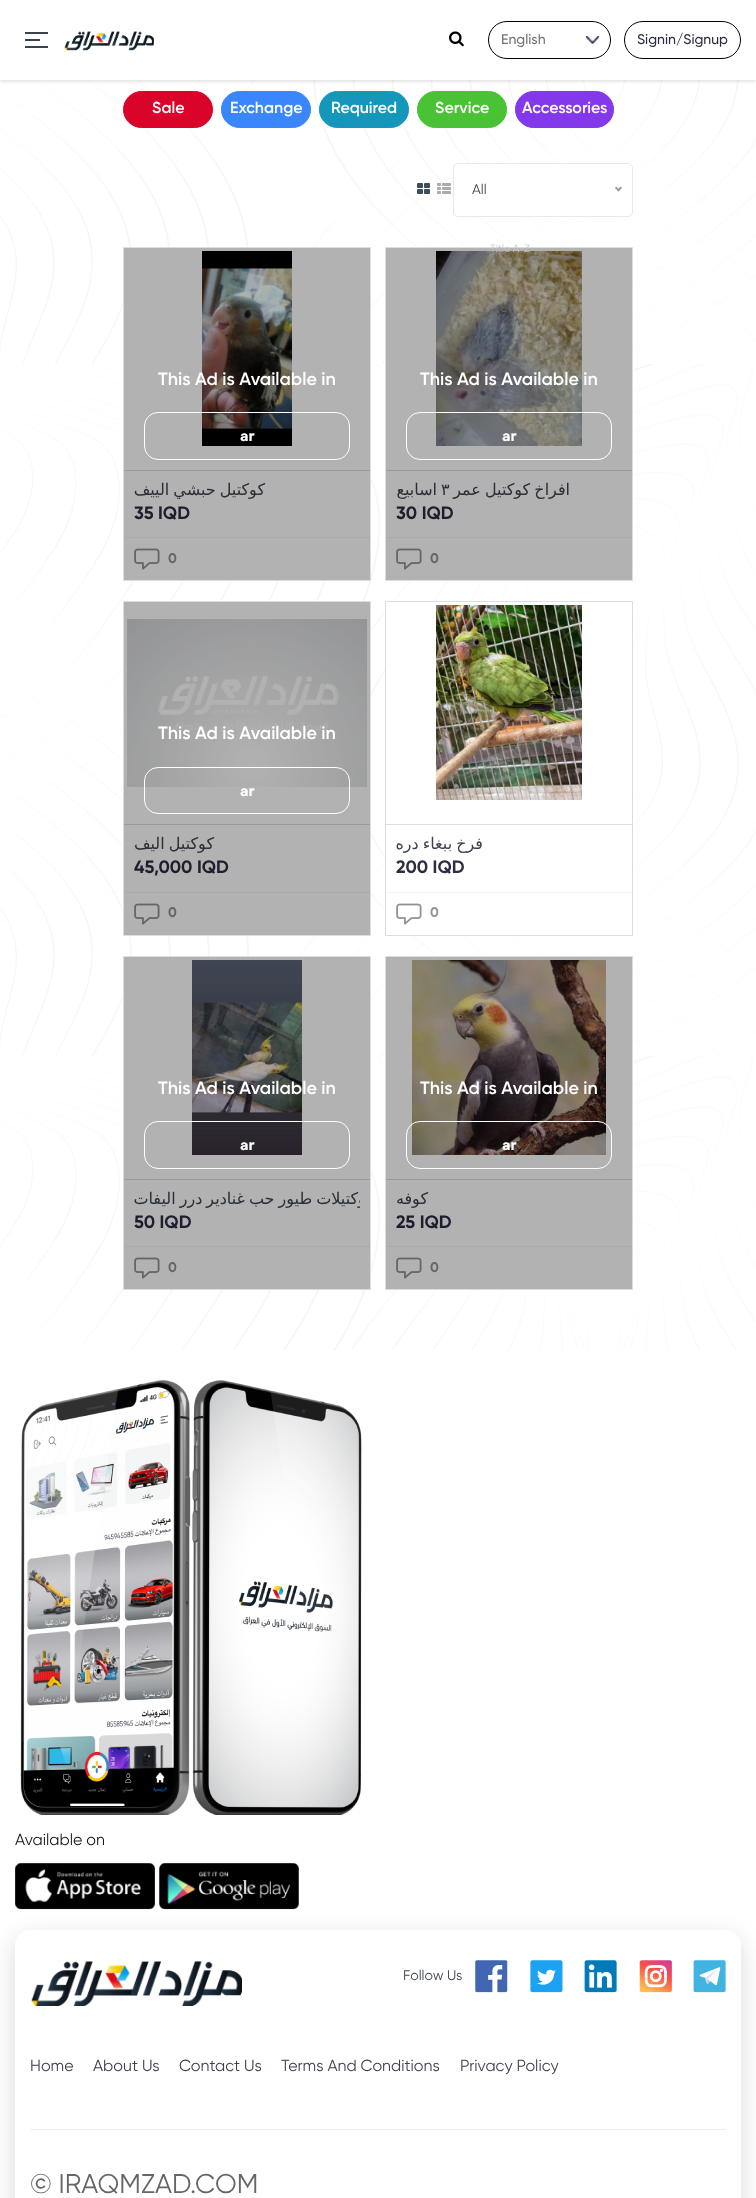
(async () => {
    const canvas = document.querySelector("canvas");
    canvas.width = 756;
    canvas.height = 2198;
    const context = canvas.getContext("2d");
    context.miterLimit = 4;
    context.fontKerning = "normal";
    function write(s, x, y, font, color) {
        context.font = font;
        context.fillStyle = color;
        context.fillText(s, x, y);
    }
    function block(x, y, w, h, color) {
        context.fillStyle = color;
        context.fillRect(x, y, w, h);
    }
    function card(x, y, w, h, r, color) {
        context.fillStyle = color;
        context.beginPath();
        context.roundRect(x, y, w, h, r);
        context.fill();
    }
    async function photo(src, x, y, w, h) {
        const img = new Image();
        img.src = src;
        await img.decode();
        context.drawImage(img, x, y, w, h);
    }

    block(0, 0, 756, 2198, "rgb(255, 255, 255)");
    await photo("media/4.png", 0, 80, 756, 1270);
    context.fillStyle = "rgba(0, 0, 0, 0.1)";
    context.filter = "blur(1.5px)";
    context.beginPath();
    context.rect(0, 2, 756, 80);
    context.fill();
    context.filter = "none";
    block(0, 0, 756, 80, "rgb(255, 255, 255)");
    block(25, 39, 15, 2, "rgb(60, 66, 79)");
    block(25, 32, 23, 2, "rgb(60, 66, 79)");
    block(25, 46, 23, 2, "rgb(60, 66, 79)");
    await photo("media/1.png", 64, 31, 90, 20);
    await photo("media/2.png", 449, 31, 15, 16);
    await photo("media/3.png", 586, 36, 13, 8);
    context.beginPath();
    context.roundRect(488.5, 21.5, 122, 37, 18.5);
    context.strokeStyle = "rgb(0, 0, 0)";
    context.stroke();
    write("English", 501, 44, "500 14px Gilroy", "rgb(114, 114, 114)");
    context.beginPath();
    context.roundRect(624.5, 21.5, 116, 37, 18.5);
    context.stroke();
    write("Signin/Signup", 637, 44, "500 14px Gilroy", "rgb(43, 45, 66)");
    context.fillStyle = "rgb(218, 4, 42)";
    context.beginPath();
    context.roundRect(123.5, 91.5, 89, 36, 18);
    context.fill();
    context.strokeStyle = "rgb(218, 4, 42)";
    context.stroke();
    write("Sale", 152, 113, "600 16px Gilroy", "rgb(255, 255, 255)");
    context.fillStyle = "rgb(58, 134, 255)";
    context.beginPath();
    context.roundRect(221.5, 91.5, 89, 36, 18);
    context.fill();
    context.strokeStyle = "rgb(58, 134, 255)";
    context.stroke();
    write("Exchange", 230, 113, "600 16px Gilroy", "rgb(255, 255, 255)");
    context.fillStyle = "rgb(21, 151, 187)";
    context.beginPath();
    context.roundRect(319.5, 91.5, 89, 36, 18);
    context.fill();
    context.strokeStyle = "rgb(21, 151, 187)";
    context.stroke();
    write("Required", 331, 113, "600 16px Gilroy", "rgb(255, 255, 255)");
    context.fillStyle = "rgb(73, 194, 53)";
    context.beginPath();
    context.roundRect(417.5, 91.5, 89, 36, 18);
    context.fill();
    context.strokeStyle = "rgb(73, 194, 53)";
    context.stroke();
    write("Service", 435, 113, "600 16px Gilroy", "rgb(255, 255, 255)");
    context.fillStyle = "rgb(131, 56, 236)";
    context.beginPath();
    context.roundRect(515.5, 91.5, 98, 36, 18);
    context.fill();
    context.strokeStyle = "rgb(131, 56, 236)";
    context.stroke();
    write("Accessories", 522, 113, "600 16px Gilroy", "rgb(255, 255, 255)");
    await photo("media/5.png", 417, 183, 13, 11);
    await photo("media/6.png", 437, 183, 14, 11);
    context.beginPath();
    context.roundRect(453.5, 163.5, 179, 53, 4.5);
    context.fill();
    context.strokeStyle = "rgb(232, 232, 232)";
    context.stroke();
    write("All", 472, 194, "14px Gilroy", "rgb(60, 66, 79)");
    context.fillStyle = "rgb(153, 153, 153)";
    context.beginPath();
    context.moveTo(620.5, 186.5);
    context.lineTo(622, 188);
    context.lineTo(618.5, 191.5);
    context.lineTo(617, 190);
    context.closePath();
    context.fill();
    context.beginPath();
    context.moveTo(616, 186.5);
    context.lineTo(619.5, 190);
    context.lineTo(618.5, 191.5);
    context.lineTo(615, 188);
    context.closePath();
    context.fill();
    context.fillStyle = "rgb(255, 255, 255)";
    context.beginPath();
    context.rect(385.5, 247.5, 247, 333);
    context.fill();
    context.strokeStyle = "rgb(221, 221, 221)";
    context.stroke();
    await photo("media/9.png", 436, 251, 146, 195);
    block(386, 470, 246, 1, "rgb(221, 221, 221)");
    context.direction = "rtl";
    write("اسابيع", 437, 495, "16px DejaVu Sans", "rgb(60, 66, 79)");
    context.direction = "ltr";
    write("٣", 441, 495, "16px DejaVu Sans", "rgb(60, 66, 79)");
    context.wordSpacing = "-1px";
    context.direction = "rtl";
    write("افراخ كوكتيل عمر", 570, 495, "16px DejaVu Sans", "rgb(60, 66, 79)");
    context.wordSpacing = "0px";
    context.direction = "ltr";
    write("30 IQD", 396, 519, "bold 18px Gilroy", "rgb(43, 45, 66)");
    block(386, 537, 246, 1, "rgb(244, 244, 244)");
    await photo("media/8.png", 396, 548, 26, 22);
    write("0", 430, 563, "bold 14px Gilroy", "rgb(146, 146, 146)");
    block(386, 248, 246, 332, "rgba(0, 0, 0, 0.3)");
    write("Title A-Z", 490, 252, "10.5px Gilroy", "rgb(199, 197, 194)");
    write("c", 501, 312, "10.5px Gilroy", "rgb(121, 116, 101)");
    write("r", 496, 342, "10.5px Gilroy", "rgb(109, 108, 100)");
    context.fillStyle = "rgb(255, 255, 255)";
    context.beginPath();
    context.rect(123.5, 247.5, 247, 333);
    context.fill();
    context.stroke();
    block(124, 470, 246, 1, "rgb(221, 221, 221)");
    await photo("media/7.png", 202, 251, 90, 195);
    context.wordSpacing = "-1px";
    context.direction = "rtl";
    write("كوكتيل حبشي الييف", 265, 495, "16px DejaVu Sans", "rgb(60, 66, 79)");
    context.wordSpacing = "0px";
    context.direction = "ltr";
    write("35 IQD", 134, 519, "bold 18px Gilroy", "rgb(43, 45, 66)");
    block(124, 537, 246, 1, "rgb(244, 244, 244)");
    await photo("media/8.png", 134, 548, 26, 22);
    write("0", 168, 563, "bold 14px Gilroy", "rgb(146, 146, 146)");
    block(124, 248, 246, 332, "rgba(0, 0, 0, 0.3)");
    write("This Ad is Available in", 158, 385, "600 18px Gilroy", "rgb(255, 255, 255)");
    context.beginPath();
    context.roundRect(144.5, 412.5, 205, 47, 13.5);
    context.strokeStyle = "rgb(255, 255, 255)";
    context.stroke();
    write("ar", 240, 441, "bold 15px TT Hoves", "rgb(255, 255, 255)");
    write("This Ad is Available in", 420, 385, "600 18px Gilroy", "rgb(255, 255, 255)");
    context.beginPath();
    context.roundRect(406.5, 412.5, 205, 47, 13.5);
    context.stroke();
    write("ar", 502, 441, "bold 15px TT Hoves", "rgb(255, 255, 255)");
    context.beginPath();
    context.rect(123.5, 601.5, 247, 334);
    context.fill();
    context.strokeStyle = "rgb(221, 221, 221)";
    context.stroke();
    block(124, 824, 246, 1, "rgb(221, 221, 221)");
    await photo("media/10.png", 127, 619, 240, 168);
    context.wordSpacing = "-1px";
    context.direction = "rtl";
    write("كوكتيل اليف", 214, 849, "16px DejaVu Sans", "rgb(60, 66, 79)");
    context.wordSpacing = "0px";
    context.direction = "ltr";
    write("45,000 IQD", 134, 873, "bold 18px Gilroy", "rgb(43, 45, 66)");
    block(124, 892, 246, 1, "rgb(244, 244, 244)");
    await photo("media/8.png", 134, 903, 26, 22);
    write("0", 168, 917, "bold 14px Gilroy", "rgb(146, 146, 146)");
    block(124, 602, 246, 333, "rgba(0, 0, 0, 0.3)");
    write("This Ad is Available in", 158, 739, "600 18px Gilroy", "rgb(255, 255, 255)");
    context.beginPath();
    context.roundRect(144.5, 767.5, 205, 46, 13.5);
    context.strokeStyle = "rgb(255, 255, 255)";
    context.stroke();
    write("ar", 240, 796, "bold 15px TT Hoves", "rgb(255, 255, 255)");
    context.beginPath();
    context.rect(385.5, 601.5, 247, 334);
    context.fill();
    context.strokeStyle = "rgb(221, 221, 221)";
    context.stroke();
    block(386, 824, 246, 1, "rgb(221, 221, 221)");
    await photo("media/11.png", 436, 605, 146, 195);
    context.wordSpacing = "-1px";
    context.direction = "rtl";
    write("فرخ ببغاء دره", 483, 849, "16px DejaVu Sans", "rgb(60, 66, 79)");
    context.wordSpacing = "0px";
    context.direction = "ltr";
    write("200 IQD", 396, 873, "bold 18px Gilroy", "rgb(43, 45, 66)");
    block(386, 892, 246, 1, "rgb(244, 244, 244)");
    await photo("media/8.png", 396, 903, 26, 22);
    write("0", 430, 917, "bold 14px Gilroy", "rgb(146, 146, 146)");
    context.fillStyle = "rgb(255, 255, 255)";
    context.beginPath();
    context.rect(123.5, 956.5, 247, 333);
    context.fill();
    context.stroke();
    block(124, 1179, 246, 1, "rgb(221, 221, 221)");
    await photo("media/12.png", 192, 960, 110, 195);
    context.save();
    context.beginPath();
    context.rect(134, 1190, 226, 21);
    context.clip();
    context.wordSpacing = "-1px";
    context.direction = "rtl";
    write("كوكتيلات طيور حب غنادير درر اليفات", 374, 1204, "16px DejaVu Sans", "rgb(60, 66, 79)");
    context.restore();
    write("50 IQD", 134, 1228, "bold 18px Gilroy", "rgb(43, 45, 66)");
    block(124, 1246, 246, 1, "rgb(244, 244, 244)");
    await photo("media/8.png", 134, 1257, 26, 22);
    write("0", 168, 1272, "bold 14px Gilroy", "rgb(146, 146, 146)");
    block(124, 957, 246, 332, "rgba(0, 0, 0, 0.3)");
    write("This Ad is Available in", 158, 1094, "600 18px Gilroy", "rgb(255, 255, 255)");
    context.beginPath();
    context.roundRect(144.5, 1121.5, 205, 47, 13.5);
    context.strokeStyle = "rgb(255, 255, 255)";
    context.stroke();
    write("ar", 240, 1150, "bold 15px TT Hoves", "rgb(255, 255, 255)");
    context.beginPath();
    context.rect(385.5, 956.5, 247, 333);
    context.fill();
    context.strokeStyle = "rgb(221, 221, 221)";
    context.stroke();
    block(386, 1179, 246, 1, "rgb(221, 221, 221)");
    await photo("media/13.png", 412, 960, 194, 195);
    context.direction = "rtl";
    write("كوفه", 428, 1204, "16px DejaVu Sans", "rgb(60, 66, 79)");
    context.direction = "ltr";
    write("25 IQD", 396, 1228, "bold 18px Gilroy", "rgb(43, 45, 66)");
    block(386, 1246, 246, 1, "rgb(244, 244, 244)");
    await photo("media/8.png", 396, 1257, 26, 22);
    write("0", 430, 1272, "bold 14px Gilroy", "rgb(146, 146, 146)");
    block(386, 957, 246, 332, "rgba(0, 0, 0, 0.3)");
    write("This Ad is Available in", 420, 1094, "600 18px Gilroy", "rgb(255, 255, 255)");
    context.beginPath();
    context.roundRect(406.5, 1121.5, 205, 47, 13.5);
    context.strokeStyle = "rgb(255, 255, 255)";
    context.stroke();
    write("ar", 502, 1150, "bold 15px TT Hoves", "rgb(255, 255, 255)");
    await photo("media/14.png", 20, 1380, 342, 435);
    write("Available on", 15, 1845, "16px Gilroy", "rgb(27, 23, 23)");
    await photo("media/15.png", 15, 1863, 140, 47);
    await photo("media/16.png", 159, 1863, 140, 47);
    context.fillStyle = "rgba(0, 0, 0, 0.15)";
    context.filter = "blur(12px)";
    context.beginPath();
    context.roundRect(15, 1938, 726, 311, 15);
    context.fill();
    context.filter = "none";
    card(15, 1930, 726, 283, 15, "rgb(255, 255, 255)");
    await photo("media/17.png", 31, 1961, 211, 45);
    write("Follow Us", 403, 1980, "14px Gilroy", "rgb(60, 66, 79)");
    await photo("media/18.png", 475, 1960, 33, 33);
    await photo("media/19.png", 530, 1960, 33, 33);
    await photo("media/20.png", 584, 1960, 33, 33);
    await photo("media/21.png", 639, 1960, 33, 33);
    await photo("media/22.png", 693, 1960, 33, 33);
    block(30, 2129, 696, 1, "rgb(238, 238, 238)");
    write("Home", 30, 2071, "16px Gilroy", "rgb(60, 66, 79)");
    write("About Us", 93, 2071, "16px Gilroy", "rgb(60, 66, 79)");
    write("Contact Us", 179, 2071, "16px Gilroy", "rgb(60, 66, 79)");
    write("Terms And Conditions", 281, 2071, "16px Gilroy", "rgb(60, 66, 79)");
    write("Privacy Policy", 460, 2071, "16px Gilroy", "rgb(60, 66, 79)");
    write("© IRAQMZAD.COM", 30, 2193, "27px Gilroy", "rgb(102, 102, 102)");
})();
